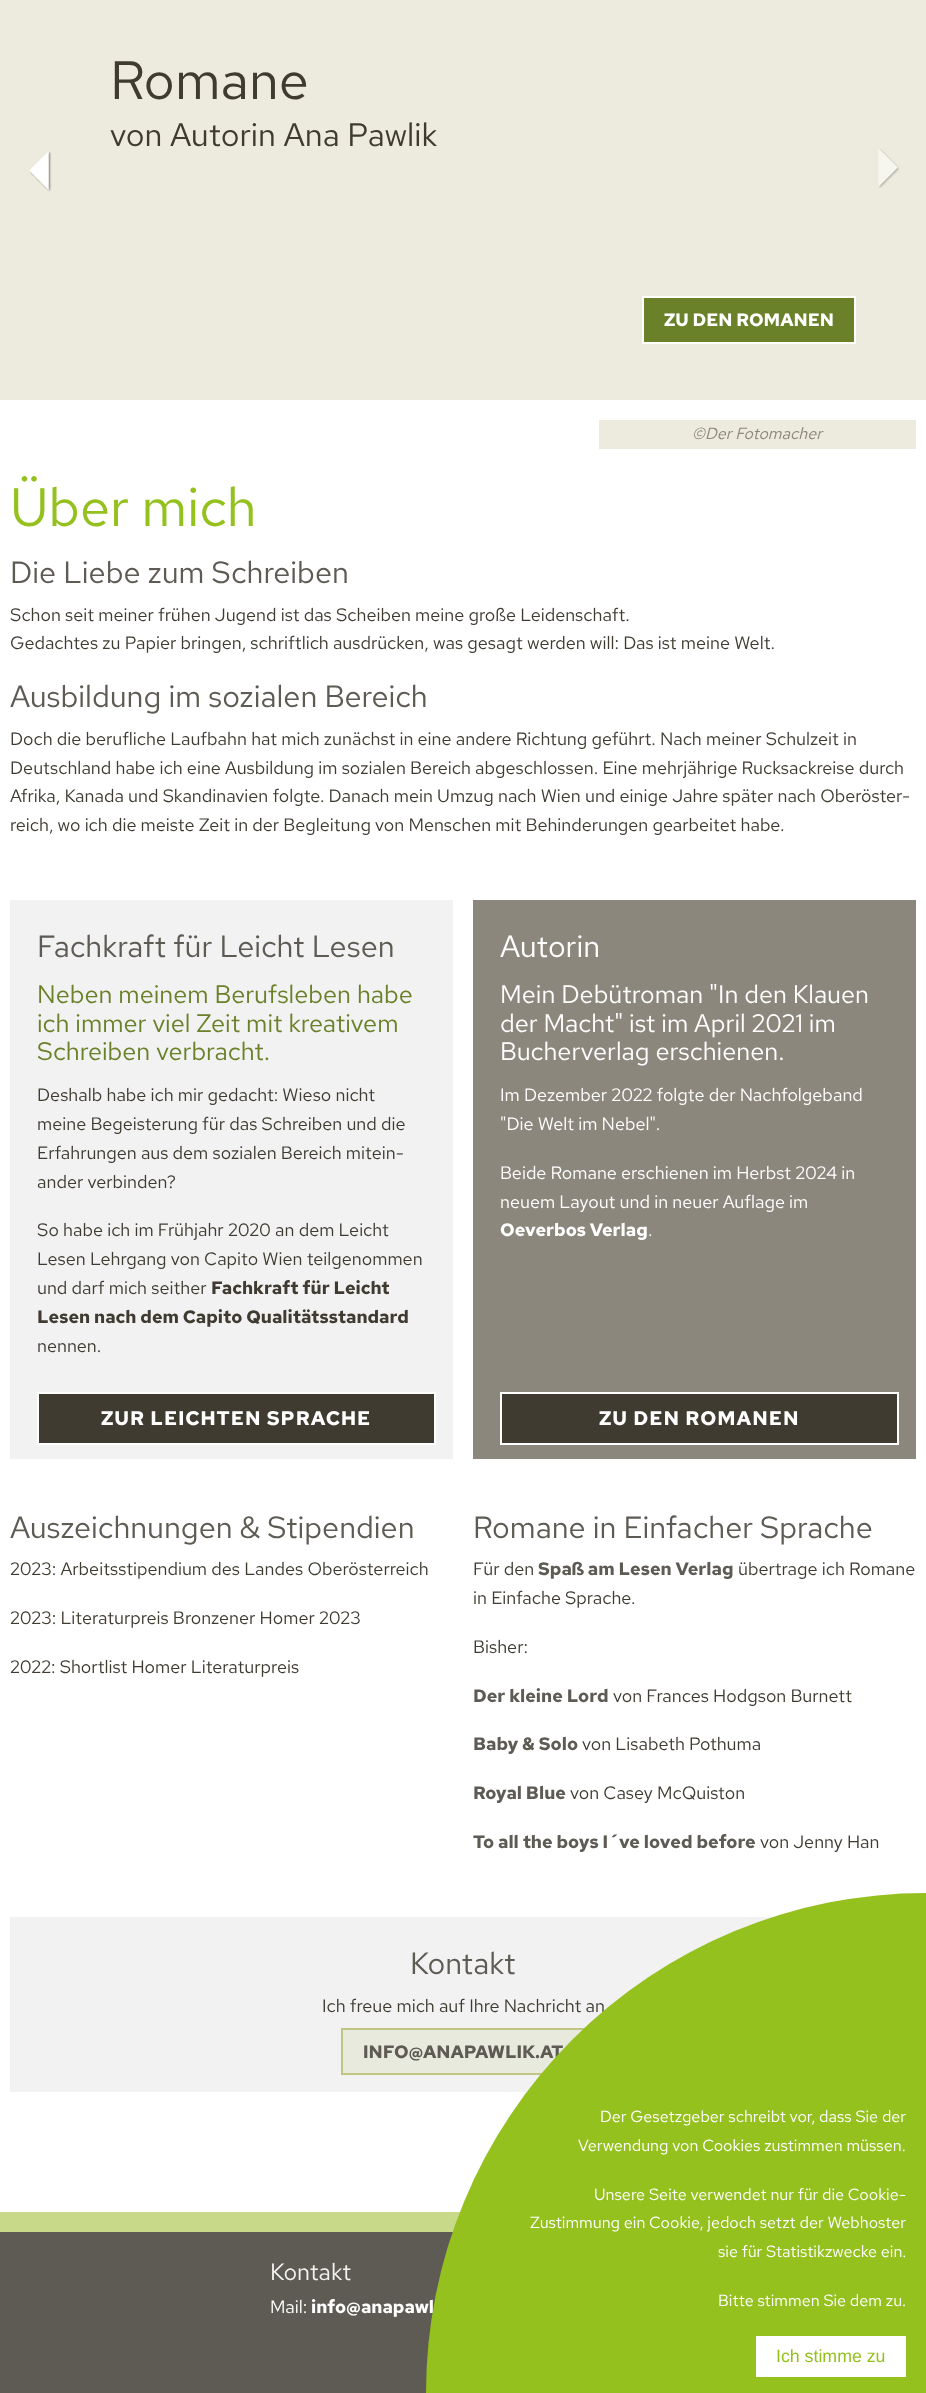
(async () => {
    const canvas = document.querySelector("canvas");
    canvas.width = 926;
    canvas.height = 2393;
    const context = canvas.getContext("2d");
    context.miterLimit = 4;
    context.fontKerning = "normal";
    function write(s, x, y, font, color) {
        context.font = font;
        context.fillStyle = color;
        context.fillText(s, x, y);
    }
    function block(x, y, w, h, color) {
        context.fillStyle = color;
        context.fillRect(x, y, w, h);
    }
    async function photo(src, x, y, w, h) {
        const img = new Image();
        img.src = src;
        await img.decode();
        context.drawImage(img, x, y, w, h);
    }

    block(0, 0, 926, 2393, "rgb(255, 255, 255)");
    block(0, 0, 926, 400, "rgb(237, 235, 221)");
    await photo("media/1.png", 29, 151, 23, 41);
    write("Romane", 110, 99, "54px Red Hat Text", "rgb(63, 59, 49)");
    write("von Autorin Ana Pawlik", 110, 146, "32.4px Red Hat Text", "rgb(63, 59, 49)");
    context.fillStyle = "rgb(106, 128, 41)";
    context.beginPath();
    context.rect(643, 297, 212, 46);
    context.fill();
    context.strokeStyle = "rgb(255, 255, 255)";
    context.lineWidth = 2;
    context.stroke();
    write("ZU DEN ROMANEN", 664, 326, "bold 18px Red Hat Text", "rgb(255, 255, 255)");
    await photo("media/2.png", 878, 148, 22, 40);
    block(599, 420, 317, 29, "rgb(237, 235, 221)");
    write("©Der Fotomacher", 692, 439, "italic 16.2px Red Hat Text", "rgb(140, 135, 125)");
    write("Über mich", 10, 526, "54px Red Hat Text", "rgb(149, 193, 31)");
    write("Die Liebe zum Schreiben", 10, 583, "30.6px Red Hat Text", "rgb(94, 91, 84)");
    write("Schon seit meiner frühen Jugend ist das Scheiben meine große Leidenschaft.", 10, 621, "18px Red Hat Text", "rgb(63, 59, 49)");
    write("Gedachtes zu Papier bringen, schriftlich ausdrücken, was gesagt werden will: Das ist meine Welt.", 10, 649, "18px Red Hat Text", "rgb(63, 59, 49)");
    write("Ausbildung im sozialen Bereich", 10, 707, "30.6px Red Hat Text", "rgb(94, 91, 84)");
    write("Doch die berufliche Laufbahn hat mich zunächst in eine andere Richtung geführt. Nach meiner Schulzeit in", 10, 745, "18px Red Hat Text", "rgb(63, 59, 49)");
    write("Deutschland habe ich eine Ausbildung im sozialen Bereich abgeschlossen. Eine mehrjährige Rucksackreise durch", 10, 774, "18px Red Hat Text", "rgb(63, 59, 49)");
    write("Afrika, Kanada und Skandinavien folgte. Danach mein Umzug nach Wien und einige Jahre später nach Oberöster-", 10, 802, "18px Red Hat Text", "rgb(63, 59, 49)");
    write("reich, wo ich die meiste Zeit in der Begleitung von Menschen mit Behinderungen gearbeitet habe.", 10, 831, "18px Red Hat Text", "rgb(63, 59, 49)");
    block(10, 900, 443, 559, "rgb(242, 242, 242)");
    write("Fachkraft für Leicht Lesen", 37, 957, "30.6px Red Hat Text", "rgb(94, 91, 84)");
    write("Neben meinem Berufsleben habe", 37, 1003, "25.25px Red Hat Text", "rgb(106, 128, 41)");
    write("ich immer viel Zeit mit kreativem", 37, 1032, "25.25px Red Hat Text", "rgb(106, 128, 41)");
    write("Schreiben verbracht.", 37, 1060, "25.25px Red Hat Text", "rgb(106, 128, 41)");
    write("Deshalb habe ich mir gedacht: Wieso nicht", 37, 1101, "18px Red Hat Text", "rgb(63, 59, 49)");
    write("meine Begeisterung für das Schreiben und die", 37, 1130, "18px Red Hat Text", "rgb(63, 59, 49)");
    write("Erfahrungen aus dem sozialen Bereich mitein-", 37, 1159, "18px Red Hat Text", "rgb(63, 59, 49)");
    write("ander verbinden?", 37, 1188, "18px Red Hat Text", "rgb(63, 59, 49)");
    write("So habe ich im Frühjahr 2020 an dem Leicht", 37, 1236, "18px Red Hat Text", "rgb(63, 59, 49)");
    write("Lesen Lehrgang von Capito Wien teilgenommen", 37, 1265, "18px Red Hat Text", "rgb(63, 59, 49)");
    write("und darf mich seither", 37, 1294, "18px Red Hat Text", "rgb(63, 59, 49)");
    write("Fachkraft für Leicht", 211, 1294, "bold 18px Red Hat Text", "rgb(63, 59, 49)");
    write("Lesen nach dem Capito Qualitätsstandard", 37, 1323, "bold 18px Red Hat Text", "rgb(63, 59, 49)");
    write("nennen.", 37, 1352, "18px Red Hat Text", "rgb(63, 59, 49)");
    context.beginPath();
    context.rect(38, 1393, 397, 51);
    context.fill();
    context.stroke();
    context.letterSpacing = "1px";
    write("ZUR LEICHTEN SPRACHE", 101, 1425, "bold 19.75px Red Hat Text", "rgb(255, 255, 255)");
    block(473, 900, 443, 559, "rgb(140, 135, 125)");
    context.letterSpacing = "0px";
    write("Autorin", 500, 957, "30.6px Red Hat Text", "rgb(255, 255, 255)");
    write("Mein Debütroman \"In den Klauen", 500, 1003, "25.25px Red Hat Text", "rgb(255, 255, 255)");
    write("der Macht\" ist im April 2021 im", 500, 1032, "25.25px Red Hat Text", "rgb(255, 255, 255)");
    write("Bucherverlag erschienen.", 500, 1060, "25.25px Red Hat Text", "rgb(255, 255, 255)");
    write("Im Dezember 2022 folgte der Nachfolgeband", 500, 1101, "18px Red Hat Text", "rgb(255, 255, 255)");
    write("\"Die Welt im Nebel\".", 500, 1130, "18px Red Hat Text", "rgb(255, 255, 255)");
    write("Beide Romane erschienen im Herbst 2024 in", 500, 1179, "18px Red Hat Text", "rgb(255, 255, 255)");
    write("neuem Layout und in neuer Auflage im", 500, 1208, "18px Red Hat Text", "rgb(255, 255, 255)");
    write("Oeverbos Verlag", 500, 1236, "bold 18px Red Hat Text", "rgb(255, 255, 255)");
    write(".", 648, 1236, "18px Red Hat Text", "rgb(255, 255, 255)");
    context.fillStyle = "rgb(63, 59, 49)";
    context.beginPath();
    context.rect(501, 1393, 397, 51);
    context.fill();
    context.stroke();
    context.letterSpacing = "1px";
    write("ZU DEN ROMANEN", 599, 1425, "bold 19.75px Red Hat Text", "rgb(255, 255, 255)");
    context.letterSpacing = "0px";
    write("Auszeichnungen & Stipendien", 10, 1538, "30.6px Red Hat Text", "rgb(94, 91, 84)");
    write("2023: Arbeitsstipendium des Landes Oberösterreich", 10, 1575, "18px Red Hat Text", "rgb(63, 59, 49)");
    write("2023: Literaturpreis Bronzener Homer 2023", 10, 1624, "18px Red Hat Text", "rgb(63, 59, 49)");
    write("2022: Shortlist Homer Literaturpreis", 10, 1673, "18px Red Hat Text", "rgb(63, 59, 49)");
    write("Romane in Einfacher Sprache", 473, 1538, "30.6px Red Hat Text", "rgb(94, 91, 84)");
    write("Für den", 473, 1575, "18px Red Hat Text", "rgb(63, 59, 49)");
    write("Spaß am Lesen Verlag", 538, 1575, "bold 18px Red Hat Text", "rgb(94, 91, 84)");
    write("übertrage ich Romane", 738, 1575, "18px Red Hat Text", "rgb(63, 59, 49)");
    write("in Einfache Sprache.", 473, 1604, "18px Red Hat Text", "rgb(63, 59, 49)");
    write("Bisher:", 473, 1653, "18px Red Hat Text", "rgb(63, 59, 49)");
    write("Der kleine Lord", 473, 1702, "bold 18px Red Hat Text", "rgb(94, 91, 84)");
    write("von Frances Hodgson Burnett", 613, 1702, "18px Red Hat Text", "rgb(63, 59, 49)");
    write("Baby & Solo", 473, 1750, "bold 18px Red Hat Text", "rgb(94, 91, 84)");
    write("von Lisabeth Pothuma", 582, 1750, "18px Red Hat Text", "rgb(63, 59, 49)");
    write("Royal Blue", 473, 1799, "bold 18px Red Hat Text", "rgb(94, 91, 84)");
    write("von Casey McQuiston", 570, 1799, "18px Red Hat Text", "rgb(63, 59, 49)");
    write("To all the boys I´ve loved before", 473, 1848, "bold 18px Red Hat Text", "rgb(94, 91, 84)");
    write("von Jenny Han", 760, 1848, "18px Red Hat Text", "rgb(63, 59, 49)");
    block(10, 1917, 763, 175, "rgb(242, 242, 242)");
    write("Kontakt", 410, 1974, "30.6px Red Hat Text", "rgb(94, 91, 84)");
    write("Ich freue mich auf Ihre Nachricht an", 322, 2012, "18px Red Hat Text", "rgb(63, 59, 49)");
    context.fillStyle = "rgb(233, 234, 222)";
    context.beginPath();
    context.rect(342, 2029, 242, 45);
    context.fill();
    context.strokeStyle = "rgb(192, 198, 130)";
    context.stroke();
    write("INFO@ANAPAWLIK.AT", 363, 2058, "bold 18px Red Hat Text", "rgb(94, 91, 84)");
    block(0, 2232, 453, 161, "rgb(94, 91, 84)");
    block(0, 2212, 460, 20, "rgb(200, 217, 138)");
    write("Kontakt", 270, 2280, "23.5px Red Hat Text", "rgb(242, 242, 242)");
    write("Mail:", 270, 2313, "18px Red Hat Text", "rgb(255, 255, 255)");
    write("info@anapawl", 311, 2313, "bold 18px Red Hat Text", "rgb(255, 255, 255)");
    context.fillStyle = "rgb(149, 193, 31)";
    context.beginPath();
    context.roundRect(426, 1893, 500, 500, [500, 0, 0, 0]);
    context.fill();
    write("Der Gesetzgeber schreibt vor, dass Sie der", 600, 2122, "16.2px Red Hat Text", "rgb(255, 255, 255)");
    write("Verwendung von Cookies zustimmen müssen.", 578, 2151, "16.2px Red Hat Text", "rgb(255, 255, 255)");
    write("Unsere Seite verwendet nur für die Cookie-", 594, 2200, "16.2px Red Hat Text", "rgb(255, 255, 255)");
    write("Zustimmung ein Cookie, jedoch setzt der Webhoster", 530, 2228, "16.2px Red Hat Text", "rgb(255, 255, 255)");
    write("sie für Statistikzwecke ein.", 718, 2257, "16.2px Red Hat Text", "rgb(255, 255, 255)");
    write("Bitte stimmen Sie dem zu.", 718, 2306, "16.2px Red Hat Text", "rgb(255, 255, 255)");
    block(756, 2336, 150, 41, "rgb(255, 255, 255)");
    write("Ich stimme zu", 776, 2362, "17.75px Liberation Sans", "rgb(149, 193, 31)");
})();
